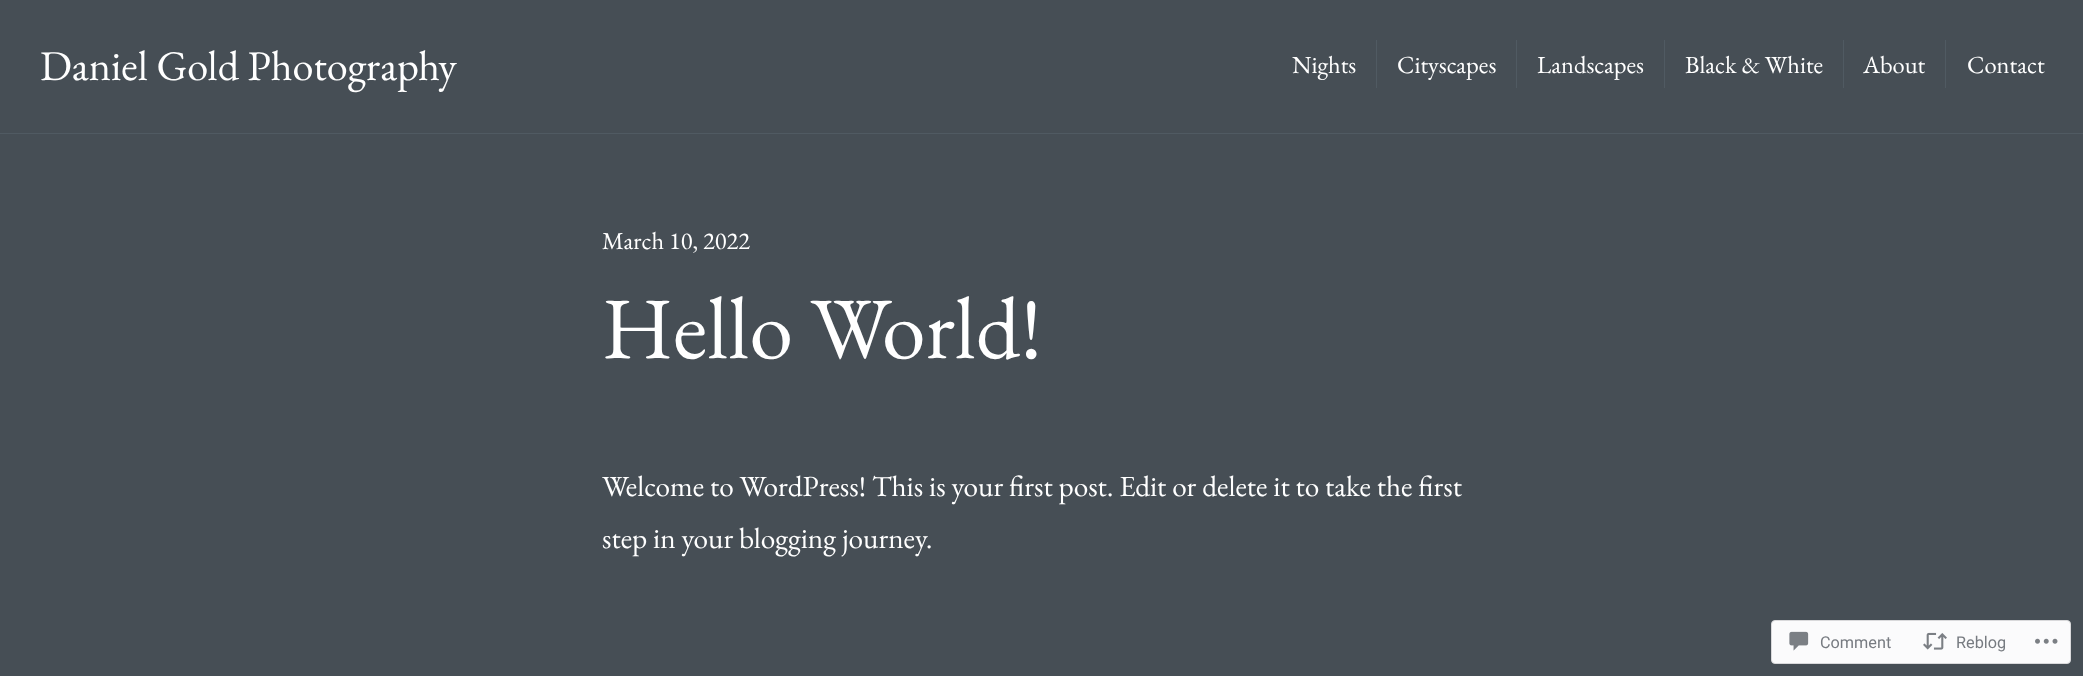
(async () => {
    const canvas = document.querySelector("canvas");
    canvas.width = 2083;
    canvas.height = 676;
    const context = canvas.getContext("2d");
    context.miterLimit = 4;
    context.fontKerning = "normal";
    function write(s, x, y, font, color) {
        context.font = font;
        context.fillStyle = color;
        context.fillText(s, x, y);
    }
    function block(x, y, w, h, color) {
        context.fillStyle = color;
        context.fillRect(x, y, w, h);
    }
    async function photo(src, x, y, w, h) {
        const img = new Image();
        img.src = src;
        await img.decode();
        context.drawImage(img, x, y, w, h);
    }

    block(0, 0, 2083, 676, "rgb(70, 78, 85)");
    block(0, 133, 2083, 1, "rgb(80, 90, 98)");
    write("Daniel Gold Photography", 40, 80, "42.25px EB Garamond", "rgb(255, 255, 255)");
    write("Nights", 1292, 73, "24.5px EB Garamond", "rgb(255, 255, 255)");
    block(1376, 40, 1, 48, "rgb(80, 90, 98)");
    write("Cityscapes", 1397, 73, "24.5px EB Garamond", "rgb(255, 255, 255)");
    block(1516, 40, 1, 48, "rgb(80, 90, 98)");
    write("Landscapes", 1537, 73, "24.5px EB Garamond", "rgb(255, 255, 255)");
    block(1664, 40, 1, 48, "rgb(80, 90, 98)");
    write("Black & White", 1685, 73, "24.5px EB Garamond", "rgb(255, 255, 255)");
    block(1843, 40, 1, 48, "rgb(80, 90, 98)");
    write("About", 1863, 73, "24.5px EB Garamond", "rgb(255, 255, 255)");
    block(1945, 40, 1, 48, "rgb(80, 90, 98)");
    write("Contact", 1967, 73, "24.5px EB Garamond", "rgb(255, 255, 255)");
    write("March 10, 2022", 602, 249, "24.5px EB Garamond", "rgb(255, 255, 255)");
    write("Hello World!", 602, 358, "87.75px EB Garamond", "rgb(255, 255, 255)");
    write("Welcome to WordPress! This is your first post. Edit or delete it to take the first", 602, 496, "29.25px EB Garamond", "rgb(255, 255, 255)");
    write("step in your blogging journey.", 602, 548, "29.25px EB Garamond", "rgb(255, 255, 255)");
    context.fillStyle = "rgb(251, 251, 252)";
    context.beginPath();
    context.roundRect(1771.5, 620.5, 299, 43, 3.5);
    context.fill();
    context.strokeStyle = "rgb(217, 217, 219)";
    context.stroke();
    await photo("media/1.png", 1789, 631, 20, 20);
    write("Comment", 1820, 648, "16.25px Roboto", "rgb(119, 123, 129)");
    await photo("media/2.png", 1923, 632, 24, 18);
    write("Reblog", 1956, 648, "16.25px Roboto", "rgb(119, 123, 129)");
    await photo("media/3.png", 2035, 638, 23, 6);
})();
